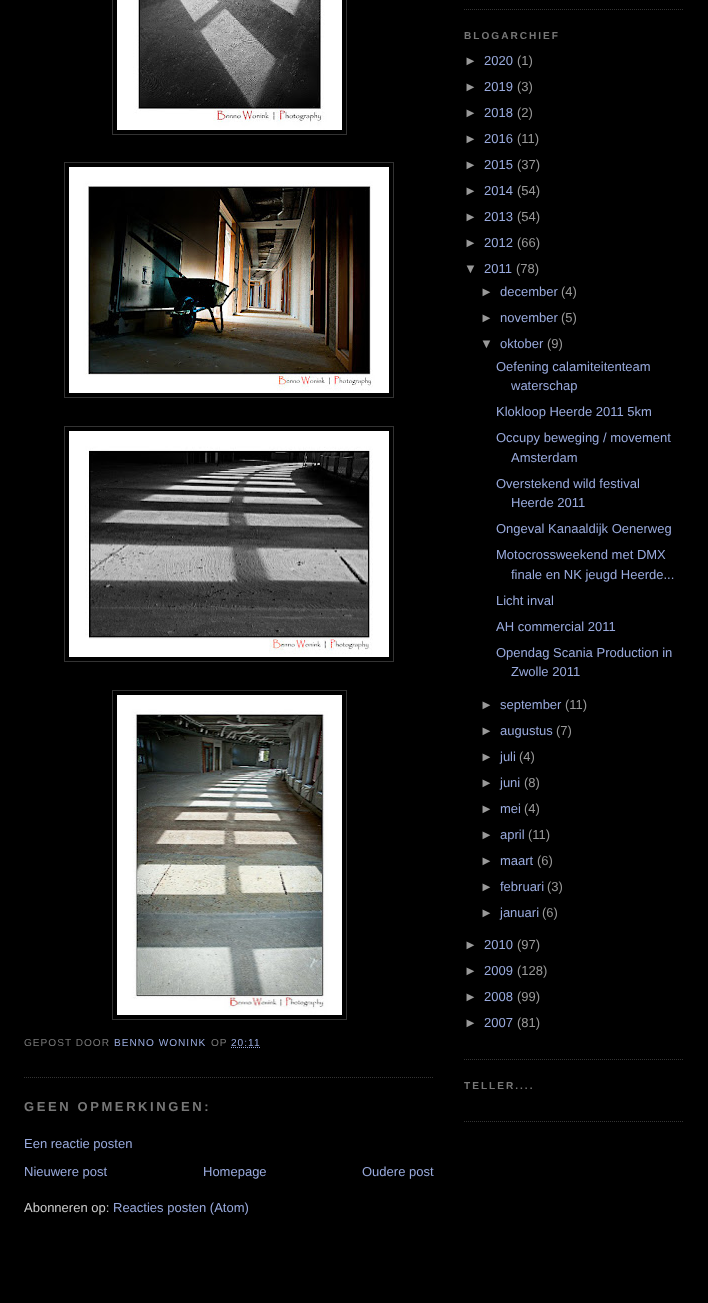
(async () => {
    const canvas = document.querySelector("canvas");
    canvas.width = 708;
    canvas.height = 1303;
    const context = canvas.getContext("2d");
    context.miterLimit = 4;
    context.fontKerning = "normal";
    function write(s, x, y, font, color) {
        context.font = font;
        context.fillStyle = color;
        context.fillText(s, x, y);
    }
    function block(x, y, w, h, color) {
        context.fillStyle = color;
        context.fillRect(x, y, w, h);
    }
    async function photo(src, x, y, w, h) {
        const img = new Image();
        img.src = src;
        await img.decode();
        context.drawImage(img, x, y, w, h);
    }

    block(0, 0, 708, 1303, "rgb(0, 0, 0)");
    context.beginPath();
    context.moveTo(464, 9.5);
    context.lineTo(684, 9.5);
    context.strokeStyle = "rgb(51, 51, 51)";
    context.setLineDash([1, 1]);
    context.stroke();
    context.beginPath();
    context.moveTo(464, 1059.5);
    context.lineTo(684, 1059.5);
    context.stroke();
    context.letterSpacing = "2px";
    write("BLOGARCHIEF", 464, 39, "bold 10.1px Liberation Sans", "rgb(119, 119, 119)");
    context.letterSpacing = "0px";
    write("►", 464, 65, "13px Liberation Sans", "rgb(153, 153, 153)");
    write("2020", 484, 65, "13px Liberation Sans", "rgb(153, 170, 221)");
    write("(1)", 517, 65, "13px Liberation Sans", "rgb(153, 153, 153)");
    write("►", 464, 91, "13px Liberation Sans", "rgb(153, 153, 153)");
    write("2019", 484, 91, "13px Liberation Sans", "rgb(153, 170, 221)");
    write("(3)", 517, 91, "13px Liberation Sans", "rgb(153, 153, 153)");
    write("►", 464, 117, "13px Liberation Sans", "rgb(153, 153, 153)");
    write("2018", 484, 117, "13px Liberation Sans", "rgb(153, 170, 221)");
    write("(2)", 517, 117, "13px Liberation Sans", "rgb(153, 153, 153)");
    write("►", 464, 143, "13px Liberation Sans", "rgb(153, 153, 153)");
    write("2016", 484, 143, "13px Liberation Sans", "rgb(153, 170, 221)");
    write("(11)", 517, 143, "13px Liberation Sans", "rgb(153, 153, 153)");
    write("►", 464, 169, "13px Liberation Sans", "rgb(153, 153, 153)");
    write("2015", 484, 169, "13px Liberation Sans", "rgb(153, 170, 221)");
    write("(37)", 517, 169, "13px Liberation Sans", "rgb(153, 153, 153)");
    write("►", 464, 195, "13px Liberation Sans", "rgb(153, 153, 153)");
    write("2014", 484, 195, "13px Liberation Sans", "rgb(153, 170, 221)");
    write("(54)", 517, 195, "13px Liberation Sans", "rgb(153, 153, 153)");
    write("►", 464, 221, "13px Liberation Sans", "rgb(153, 153, 153)");
    write("2013", 484, 221, "13px Liberation Sans", "rgb(153, 170, 221)");
    write("(54)", 517, 221, "13px Liberation Sans", "rgb(153, 153, 153)");
    write("►", 464, 247, "13px Liberation Sans", "rgb(153, 153, 153)");
    write("2012", 484, 247, "13px Liberation Sans", "rgb(153, 170, 221)");
    write("(66)", 517, 247, "13px Liberation Sans", "rgb(153, 153, 153)");
    write("▼", 464, 273, "13px Liberation Sans", "rgb(153, 153, 153)");
    write("2011", 484, 273, "13px Liberation Sans", "rgb(153, 170, 221)");
    write("(78)", 516, 273, "13px Liberation Sans", "rgb(153, 153, 153)");
    write("►", 480, 296, "13px Liberation Sans", "rgb(153, 153, 153)");
    write("december", 500, 296, "13px Liberation Sans", "rgb(153, 170, 221)");
    write("(4)", 561, 296, "13px Liberation Sans", "rgb(153, 153, 153)");
    write("►", 480, 322, "13px Liberation Sans", "rgb(153, 153, 153)");
    write("november", 500, 322, "13px Liberation Sans", "rgb(153, 170, 221)");
    write("(5)", 561, 322, "13px Liberation Sans", "rgb(153, 153, 153)");
    write("▼", 480, 348, "13px Liberation Sans", "rgb(153, 153, 153)");
    write("oktober", 500, 348, "13px Liberation Sans", "rgb(153, 170, 221)");
    write("(9)", 547, 348, "13px Liberation Sans", "rgb(153, 153, 153)");
    write("Oefening calamiteitenteam", 496, 371, "13px Liberation Sans", "rgb(153, 170, 221)");
    write("waterschap", 511, 390, "13px Liberation Sans", "rgb(153, 170, 221)");
    write("Klokloop Heerde 2011 5km", 496, 416, "13px Liberation Sans", "rgb(153, 170, 221)");
    write("Occupy beweging / movement", 496, 442, "13px Liberation Sans", "rgb(153, 170, 221)");
    write("Amsterdam", 511, 462, "13px Liberation Sans", "rgb(153, 170, 221)");
    write("Overstekend wild festival", 496, 488, "13px Liberation Sans", "rgb(153, 170, 221)");
    write("Heerde 2011", 511, 507, "13px Liberation Sans", "rgb(153, 170, 221)");
    write("Ongeval Kanaaldijk Oenerweg", 496, 533, "13px Liberation Sans", "rgb(153, 170, 221)");
    write("Motocrossweekend met DMX", 496, 559, "13px Liberation Sans", "rgb(153, 170, 221)");
    write("finale en NK jeugd Heerde...", 511, 579, "13px Liberation Sans", "rgb(153, 170, 221)");
    write("Licht inval", 496, 605, "13px Liberation Sans", "rgb(153, 170, 221)");
    write("AH commercial 2011", 496, 631, "13px Liberation Sans", "rgb(153, 170, 221)");
    write("Opendag Scania Production in", 496, 657, "13px Liberation Sans", "rgb(153, 170, 221)");
    write("Zwolle 2011", 511, 676, "13px Liberation Sans", "rgb(153, 170, 221)");
    write("►", 480, 709, "13px Liberation Sans", "rgb(153, 153, 153)");
    write("september", 500, 709, "13px Liberation Sans", "rgb(153, 170, 221)");
    write("(11)", 565, 709, "13px Liberation Sans", "rgb(153, 153, 153)");
    write("►", 480, 735, "13px Liberation Sans", "rgb(153, 153, 153)");
    write("augustus", 500, 735, "13px Liberation Sans", "rgb(153, 170, 221)");
    write("(7)", 556, 735, "13px Liberation Sans", "rgb(153, 153, 153)");
    write("►", 480, 761, "13px Liberation Sans", "rgb(153, 153, 153)");
    write("juli", 500, 761, "13px Liberation Sans", "rgb(153, 170, 221)");
    write("(4)", 519, 761, "13px Liberation Sans", "rgb(153, 153, 153)");
    write("►", 480, 787, "13px Liberation Sans", "rgb(153, 153, 153)");
    write("juni", 500, 787, "13px Liberation Sans", "rgb(153, 170, 221)");
    write("(8)", 524, 787, "13px Liberation Sans", "rgb(153, 153, 153)");
    write("►", 480, 813, "13px Liberation Sans", "rgb(153, 153, 153)");
    write("mei", 500, 813, "13px Liberation Sans", "rgb(153, 170, 221)");
    write("(4)", 524, 813, "13px Liberation Sans", "rgb(153, 153, 153)");
    write("►", 480, 839, "13px Liberation Sans", "rgb(153, 153, 153)");
    write("april", 500, 839, "13px Liberation Sans", "rgb(153, 170, 221)");
    write("(11)", 528, 839, "13px Liberation Sans", "rgb(153, 153, 153)");
    write("►", 480, 865, "13px Liberation Sans", "rgb(153, 153, 153)");
    write("maart", 500, 865, "13px Liberation Sans", "rgb(153, 170, 221)");
    write("(6)", 537, 865, "13px Liberation Sans", "rgb(153, 153, 153)");
    write("►", 480, 891, "13px Liberation Sans", "rgb(153, 153, 153)");
    write("februari", 500, 891, "13px Liberation Sans", "rgb(153, 170, 221)");
    write("(3)", 547, 891, "13px Liberation Sans", "rgb(153, 153, 153)");
    write("►", 480, 917, "13px Liberation Sans", "rgb(153, 153, 153)");
    write("januari", 500, 917, "13px Liberation Sans", "rgb(153, 170, 221)");
    write("(6)", 542, 917, "13px Liberation Sans", "rgb(153, 153, 153)");
    write("►", 464, 949, "13px Liberation Sans", "rgb(153, 153, 153)");
    write("2010", 484, 949, "13px Liberation Sans", "rgb(153, 170, 221)");
    write("(97)", 517, 949, "13px Liberation Sans", "rgb(153, 153, 153)");
    write("►", 464, 975, "13px Liberation Sans", "rgb(153, 153, 153)");
    write("2009", 484, 975, "13px Liberation Sans", "rgb(153, 170, 221)");
    write("(128)", 517, 975, "13px Liberation Sans", "rgb(153, 153, 153)");
    write("►", 464, 1001, "13px Liberation Sans", "rgb(153, 153, 153)");
    write("2008", 484, 1001, "13px Liberation Sans", "rgb(153, 170, 221)");
    write("(99)", 517, 1001, "13px Liberation Sans", "rgb(153, 153, 153)");
    write("►", 464, 1027, "13px Liberation Sans", "rgb(153, 153, 153)");
    write("2007", 484, 1027, "13px Liberation Sans", "rgb(153, 170, 221)");
    write("(81)", 517, 1027, "13px Liberation Sans", "rgb(153, 153, 153)");
    context.beginPath();
    context.moveTo(464, 1121.5);
    context.lineTo(684, 1121.5);
    context.stroke();
    context.letterSpacing = "2px";
    write("TELLER....", 464, 1089, "bold 10.1px Liberation Sans", "rgb(119, 119, 119)");
    context.beginPath();
    context.moveTo(24, 1077.5);
    context.lineTo(434, 1077.5);
    context.stroke();
    context.setLineDash([]);
    context.strokeRect(112.5, -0.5, 234, 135);
    await photo("media/1.png", 117, 0, 225, 130);
    context.strokeRect(64.5, 162.5, 329, 235);
    await photo("media/2.png", 69, 167, 320, 226);
    context.strokeRect(64.5, 426.5, 329, 235);
    await photo("media/3.png", 69, 431, 320, 226);
    context.strokeRect(112.5, 690.5, 234, 329);
    await photo("media/4.png", 117, 695, 225, 320);
    context.letterSpacing = "1px";
    write("GEPOST DOOR", 24, 1046, "10.1px Liberation Sans", "rgb(119, 119, 119)");
    write("BENNO WONINK", 114, 1046, "10.1px Liberation Sans", "rgb(153, 170, 221)");
    write("OP", 211, 1046, "10.1px Liberation Sans", "rgb(119, 119, 119)");
    write("20:11", 231, 1046, "10.1px Liberation Sans", "rgb(153, 170, 221)");
    context.beginPath();
    context.moveTo(231, 1047.5);
    context.lineTo(260.5, 1047.5);
    context.strokeStyle = "rgb(153, 170, 221)";
    context.setLineDash([1, 1]);
    context.stroke();
    context.letterSpacing = "2.6px";
    write("GEEN OPMERKINGEN:", 24, 1111, "bold 13px Liberation Sans", "rgb(119, 119, 119)");
    context.letterSpacing = "0px";
    write("Een reactie posten", 24, 1148, "13px Liberation Sans", "rgb(153, 170, 221)");
    write("Nieuwere post", 24, 1176, "13px Liberation Sans", "rgb(153, 170, 221)");
    write("Homepage", 203, 1176, "13px Liberation Sans", "rgb(153, 170, 221)");
    write("Oudere post", 362, 1176, "13px Liberation Sans", "rgb(153, 170, 221)");
    write("Abonneren op:", 24, 1212, "13px Liberation Sans", "rgb(204, 204, 204)");
    write("Reacties posten (Atom)", 113, 1212, "13px Liberation Sans", "rgb(153, 170, 221)");
})();
